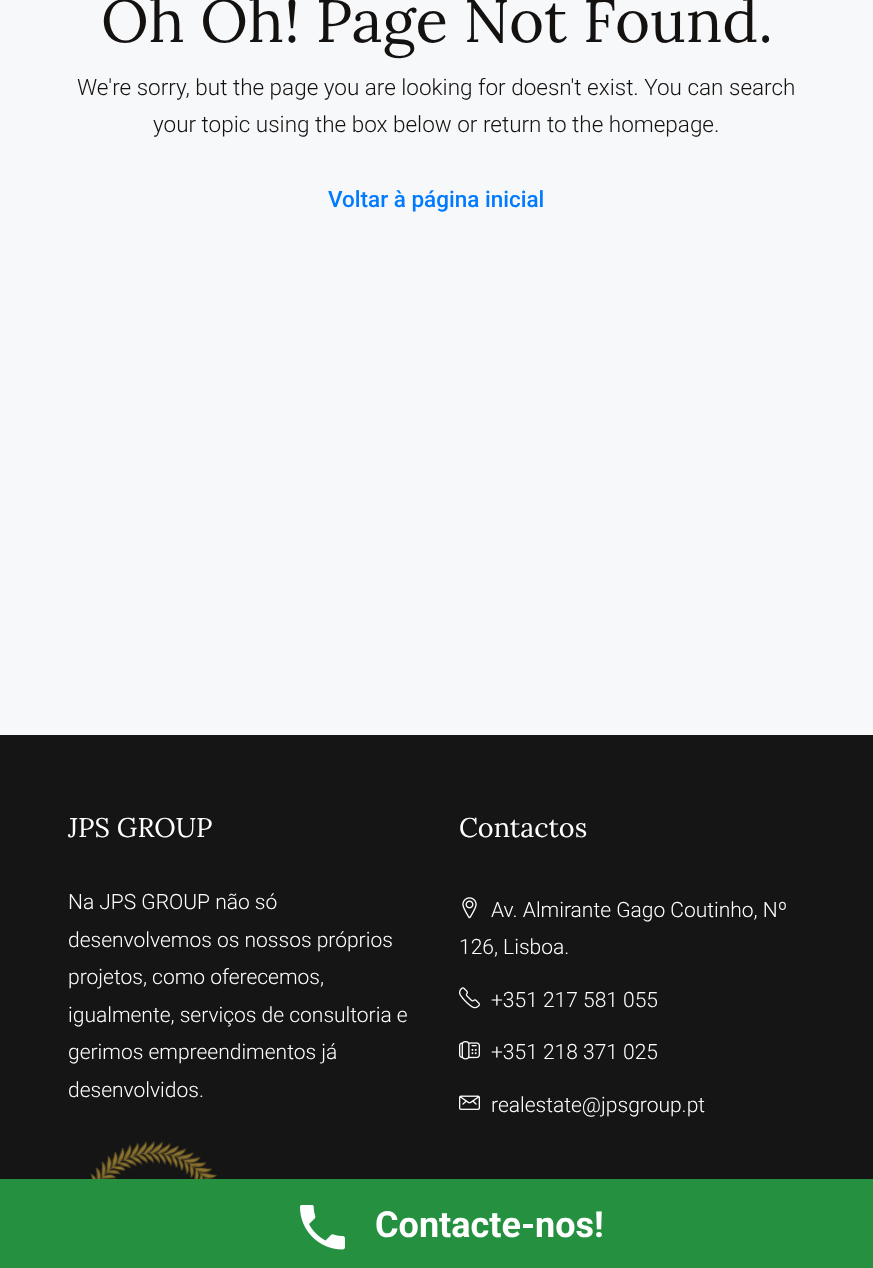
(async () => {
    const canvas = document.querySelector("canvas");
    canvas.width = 873;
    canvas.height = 1268;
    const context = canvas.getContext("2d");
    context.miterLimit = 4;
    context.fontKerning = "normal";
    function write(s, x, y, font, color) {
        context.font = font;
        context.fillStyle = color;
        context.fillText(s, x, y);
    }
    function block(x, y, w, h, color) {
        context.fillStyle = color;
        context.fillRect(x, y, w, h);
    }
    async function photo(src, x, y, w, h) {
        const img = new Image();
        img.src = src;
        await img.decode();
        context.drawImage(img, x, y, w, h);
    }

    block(0, 0, 873, 1268, "rgb(247, 248, 249)");
    write("Oh Oh! Page Not Found.", 101, 42, "60px Lora", "rgb(20, 17, 17)");
    write("We're sorry, but the page you are looking for doesn't exist. You can search", 77, 95, "300 22.5px Roboto", "rgb(20, 17, 17)");
    write("your topic using the box below or return to the homepage.", 153, 132, "300 22.5px Roboto", "rgb(20, 17, 17)");
    write("Voltar à página inicial", 328, 207, "500 22.5px Roboto", "rgb(0, 123, 255)");
    block(0, 735, 873, 444, "rgb(21, 21, 21)");
    write("JPS GROUP", 68, 837, "27px Lora", "rgb(255, 255, 255)");
    write("Na JPS GROUP não só", 68, 909, "300 21px Roboto", "rgb(255, 255, 255)");
    write("desenvolvemos os nossos próprios", 68, 947, "300 21px Roboto", "rgb(255, 255, 255)");
    write("projetos, como oferecemos,", 68, 984, "300 21px Roboto", "rgb(255, 255, 255)");
    write("igualmente, serviços de consultoria e", 68, 1022, "300 21px Roboto", "rgb(255, 255, 255)");
    write("gerimos empreendimentos já", 68, 1059, "300 21px Roboto", "rgb(255, 255, 255)");
    write("desenvolvidos.", 68, 1097, "300 21px Roboto", "rgb(255, 255, 255)");
    await photo("media/1.png", 90, 1141, 128, 38);
    write("Contactos", 459, 837, "27px Lora", "rgb(255, 255, 255)");
    await photo("media/2.png", 462, 897, 15, 22);
    write("Av. Almirante Gago Coutinho, Nº", 491, 917, "300 21px Roboto", "rgb(255, 255, 255)");
    write("126, Lisboa.", 459, 954, "300 21px Roboto", "rgb(255, 255, 255)");
    await photo("media/3.png", 459, 987, 21, 22);
    write("+351 217 581 055", 491, 1007, "300 21px Roboto", "rgb(255, 255, 255)");
    await photo("media/4.png", 459, 1041, 21, 19);
    write("+351 218 371 025", 491, 1059, "300 21px Roboto", "rgb(255, 255, 255)");
    await photo("media/5.png", 459, 1095, 21, 15);
    write("realestate@jpsgroup.pt", 491, 1112, "300 21px Roboto", "rgb(255, 255, 255)");
    block(0, 1179, 873, 89, "rgb(38, 144, 65)");
    await photo("media/6.png", 300, 1205, 45, 45);
    write("Contacte-nos!", 375, 1237, "bold 36px Roboto", "rgb(255, 255, 255)");
})();
